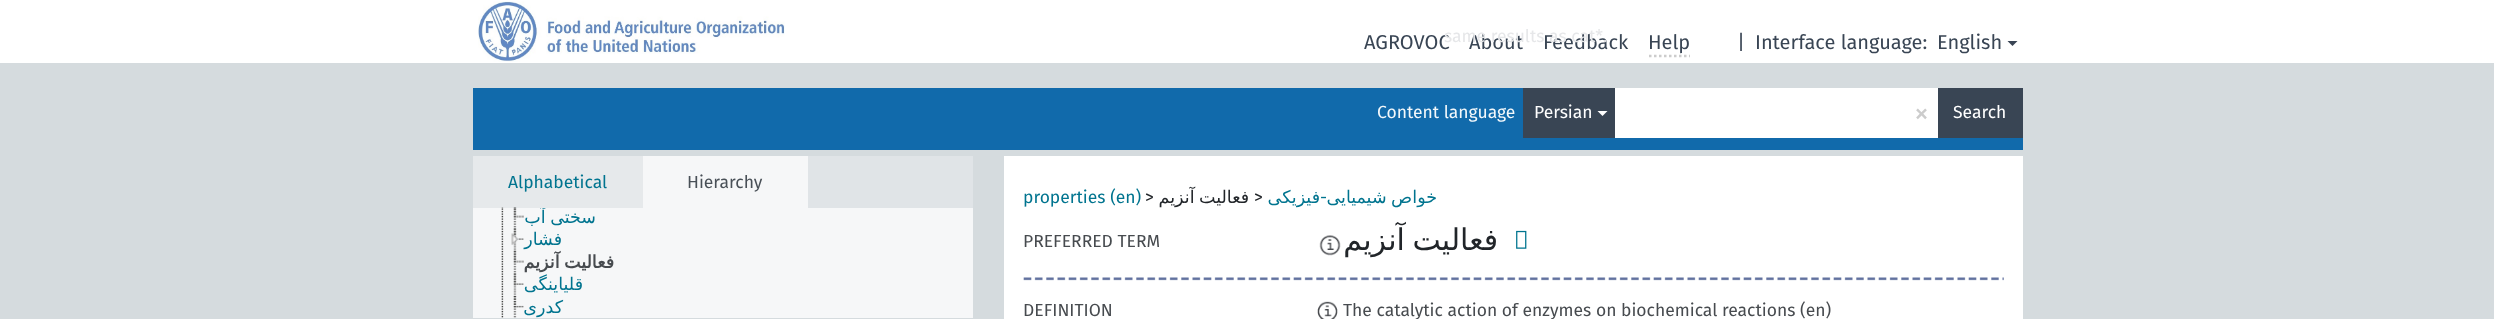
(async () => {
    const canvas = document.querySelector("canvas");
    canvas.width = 2494;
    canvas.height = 319;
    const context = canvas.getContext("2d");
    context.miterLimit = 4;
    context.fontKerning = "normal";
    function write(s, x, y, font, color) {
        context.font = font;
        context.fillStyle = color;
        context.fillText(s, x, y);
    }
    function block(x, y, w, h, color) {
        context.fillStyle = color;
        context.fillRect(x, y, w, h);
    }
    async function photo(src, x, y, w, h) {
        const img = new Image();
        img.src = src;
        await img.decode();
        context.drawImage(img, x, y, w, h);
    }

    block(0, 0, 2494, 319, "rgb(213, 219, 222)");
    block(0, 0, 2494, 63, "rgb(255, 255, 255)");
    await photo("media/1.png", 478, 1, 307, 61);
    write("AGROVOC", 1364, 49, "20px Fira Sans", "rgb(57, 69, 84)");
    write("About", 1469, 49, "20px Fira Sans", "rgb(57, 69, 84)");
    write("Feedback", 1543, 49, "20px Fira Sans", "rgb(57, 69, 84)");
    write("same results as cat*.", 1444, 42, "17.5px Fira Sans", "rgb(230, 231, 233)");
    write("Help", 1648, 49, "20px Fira Sans", "rgb(57, 69, 84)");
    context.beginPath();
    context.moveTo(1649, 56);
    context.lineTo(1690, 56);
    context.strokeStyle = "rgb(204, 204, 204)";
    context.lineWidth = 2.5;
    context.setLineDash([2.5, 2.5]);
    context.stroke();
    write("|", 1737, 49, "20px Fira Sans", "rgb(57, 69, 84)");
    write("Interface language:", 1755, 49, "20px Fira Sans", "rgb(57, 69, 84)");
    write("English", 1937, 49, "20px Fira Sans", "rgb(57, 69, 84)");
    context.beginPath();
    context.moveTo(2007.5, 41);
    context.lineTo(2017.5, 41);
    context.lineTo(2012.5, 46);
    context.closePath();
    context.fill();
    block(473, 88, 1550, 62, "rgb(17, 106, 171)");
    write("Content language", 1377, 118, "17.5px Fira Sans", "rgb(243, 248, 251)");
    block(1523, 88, 92, 50, "rgb(57, 69, 84)");
    write("Persian", 1534, 118, "17.5px Fira Sans", "rgb(255, 255, 255)");
    context.beginPath();
    context.moveTo(1597.5, 111);
    context.lineTo(1607.5, 111);
    context.lineTo(1602.5, 116);
    context.closePath();
    context.fill();
    block(1615, 88, 323, 50, "rgb(255, 255, 255)");
    write("×", 1914, 123, "30px Fira Sans", "rgb(204, 204, 204)");
    block(1938, 88, 85, 50, "rgb(57, 69, 84)");
    write("Search", 1953, 118, "17.5px Fira Sans", "rgb(255, 255, 255)");
    block(808, 156, 165, 52, "rgb(224, 228, 231)");
    block(473, 156, 170, 52, "rgb(230, 233, 235)");
    write("Alphabetical", 508, 188, "17.5px Fira Sans", "rgb(0, 116, 143)");
    block(643, 156, 165, 52, "rgb(246, 247, 248)");
    write("Hierarchy", 687, 188, "17.5px Fira Sans", "rgb(73, 80, 87)");
    block(473, 208, 500, 110, "rgb(246, 247, 248)");
    await photo("media/2.png", 501, 207, 3, 111);
    await photo("media/3.png", 513, 207, 4, 21);
    await photo("media/4.png", 513, 207, 11, 11);
    context.save();
    context.beginPath();
    context.rect(473, 208, 500, 110);
    context.clip();
    context.wordSpacing = "-1px";
    context.direction = "rtl";
    write("سختی آب", 596, 223, "17.5px DejaVu Sans", "rgb(0, 116, 143)");
    context.restore();
    await photo("media/5.png", 513, 228, 4, 23);
    await photo("media/6.png", 511, 228, 13, 17);
    context.direction = "rtl";
    write("فشار", 562, 245, "17.5px DejaVu Sans", "rgb(0, 116, 143)");
    await photo("media/7.png", 513, 251, 4, 22);
    await photo("media/8.png", 513, 250, 11, 13);
    context.wordSpacing = "-1px";
    write("فعالیت آنزیم", 614, 268, "bold 17.5px DejaVu Sans", "rgb(71, 75, 79)");
    await photo("media/5.png", 513, 273, 4, 23);
    await photo("media/9.png", 513, 273, 11, 12);
    context.wordSpacing = "0px";
    write("قلیاینگی", 583, 290, "17.5px DejaVu Sans", "rgb(0, 116, 143)");
    await photo("media/7.png", 513, 296, 4, 22);
    await photo("media/10.png", 513, 296, 11, 12);
    write("کدری", 563, 313, "17.5px DejaVu Sans", "rgb(0, 116, 143)");
    block(1004, 156, 1019, 163, "rgb(255, 255, 255)");
    context.direction = "ltr";
    write("properties (en)", 1023, 203, "17.5px Fira Sans", "rgb(0, 116, 143)");
    write(">", 1145, 203, "17.5px Fira Sans", "rgb(33, 37, 41)");
    context.wordSpacing = "-1px";
    context.direction = "rtl";
    write("فعالیت آنزیم", 1249, 203, "17.5px DejaVu Sans", "rgb(33, 37, 41)");
    context.wordSpacing = "0px";
    context.direction = "ltr";
    write(">", 1254, 203, "17.5px Fira Sans", "rgb(33, 37, 41)");
    context.direction = "rtl";
    write("فیزیکی", 1320, 203, "17.5px DejaVu Sans", "rgb(0, 116, 143)");
    write("-", 1327, 203, "17.5px Fira Sans", "rgb(0, 116, 143)");
    context.wordSpacing = "-1px";
    write("خواص شیمیایی", 1437, 203, "17.5px DejaVu Sans", "rgb(0, 116, 143)");
    context.wordSpacing = "0px";
    context.direction = "ltr";
    write("PREFERRED TERM", 1023, 247, "17.5px Fira Sans", "rgb(71, 75, 79)");
    await photo("media/11.png", 1319, 235, 22, 21);
    context.wordSpacing = "-2px";
    context.direction = "rtl";
    write("فعالیت آنزیم", 1498, 250, "30px DejaVu Sans", "rgb(33, 37, 41)");
    await photo("media/12.png", 1516, 230, 11, 19);
    await photo("media/13.png", 1023, 277, 981, 4);
    context.wordSpacing = "0px";
    context.direction = "ltr";
    write("DEFINITION", 1023, 316, "17.5px Fira Sans", "rgb(71, 75, 79)");
    await photo("media/14.png", 1317, 301, 21, 18);
    write("The catalytic action of enzymes on biochemical reactions", 1343, 316, "17.5px Fira Sans", "rgb(71, 75, 79)");
    write("(en)", 1800, 316, "17.5px Fira Sans", "rgb(71, 75, 79)");
})();
